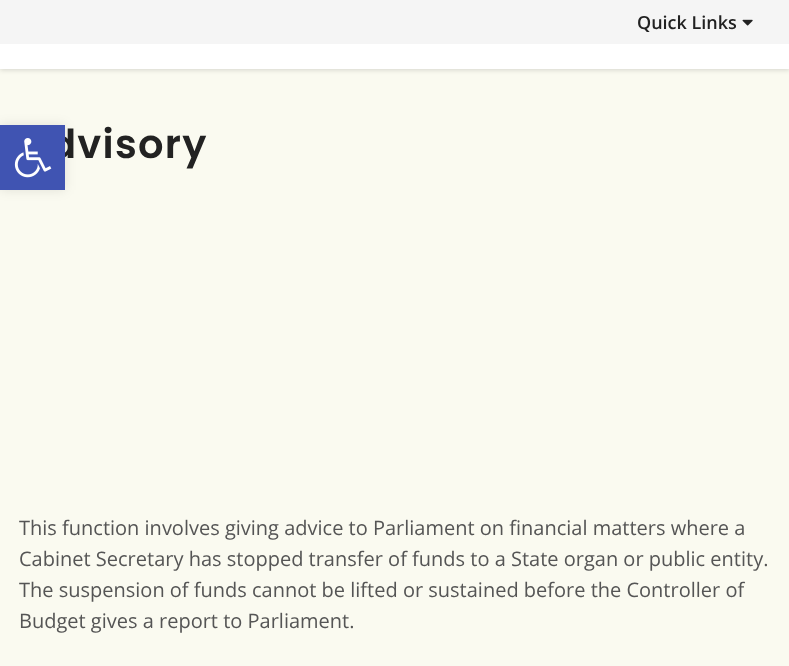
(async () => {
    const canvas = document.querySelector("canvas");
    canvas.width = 789;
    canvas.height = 666;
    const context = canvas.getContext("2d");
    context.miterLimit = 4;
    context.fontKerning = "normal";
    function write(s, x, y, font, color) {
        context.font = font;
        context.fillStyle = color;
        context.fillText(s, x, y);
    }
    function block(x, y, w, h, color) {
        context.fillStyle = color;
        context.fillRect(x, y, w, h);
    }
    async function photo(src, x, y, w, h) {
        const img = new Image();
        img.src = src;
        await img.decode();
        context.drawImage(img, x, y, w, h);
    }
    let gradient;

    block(0, 0, 789, 666, "rgb(255, 255, 255)");
    gradient = context.createLinearGradient(-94, 54, 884, 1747);
    gradient.addColorStop(0.5, "rgb(250, 250, 240)");
    gradient.addColorStop(0.5, "rgb(250, 239, 255)");
    context.fillStyle = gradient;
    context.fillRect(0, 69, 789, 597);
    context.fillStyle = "rgba(0, 0, 0, 0.15)";
    context.filter = "blur(2.5px)";
    context.beginPath();
    context.rect(0, 1, 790, 69);
    context.fill();
    context.filter = "none";
    block(0, 44, 789, 25, "rgb(255, 255, 255)");
    block(0, 0, 789, 44, "rgb(245, 245, 245)");
    write("Quick Links", 637, 29, "600 18px Open Sans", "rgb(34, 34, 34)");
    await photo("media/1.png", 742, 19, 11, 7);
    context.letterSpacing = "1.25px";
    write("dvisory", 49, 158, "600 40px Poppins", "rgb(34, 34, 34)");
    context.letterSpacing = "0px";
    write("This function involves giving advice to Parliament on financial matters where a", 19, 535, "20px Open Sans", "rgb(85, 85, 85)");
    write("Cabinet Secretary has stopped transfer of funds to a State organ or public entity.", 19, 566, "20px Open Sans", "rgb(85, 85, 85)");
    write("The suspension of funds cannot be lifted or sustained before the Controller of", 19, 597, "20px Open Sans", "rgb(85, 85, 85)");
    write("Budget gives a report to Parliament.", 19, 628, "20px Open Sans", "rgb(85, 85, 85)");
    context.fillStyle = "rgba(0, 0, 0, 0.1)";
    context.filter = "blur(6px)";
    context.beginPath();
    context.rect(0, 125, 65, 65);
    context.fill();
    context.filter = "none";
    block(0, 125, 65, 65, "rgb(64, 84, 178)");
    await photo("media/2.png", 14, 138, 38, 40);
})();
